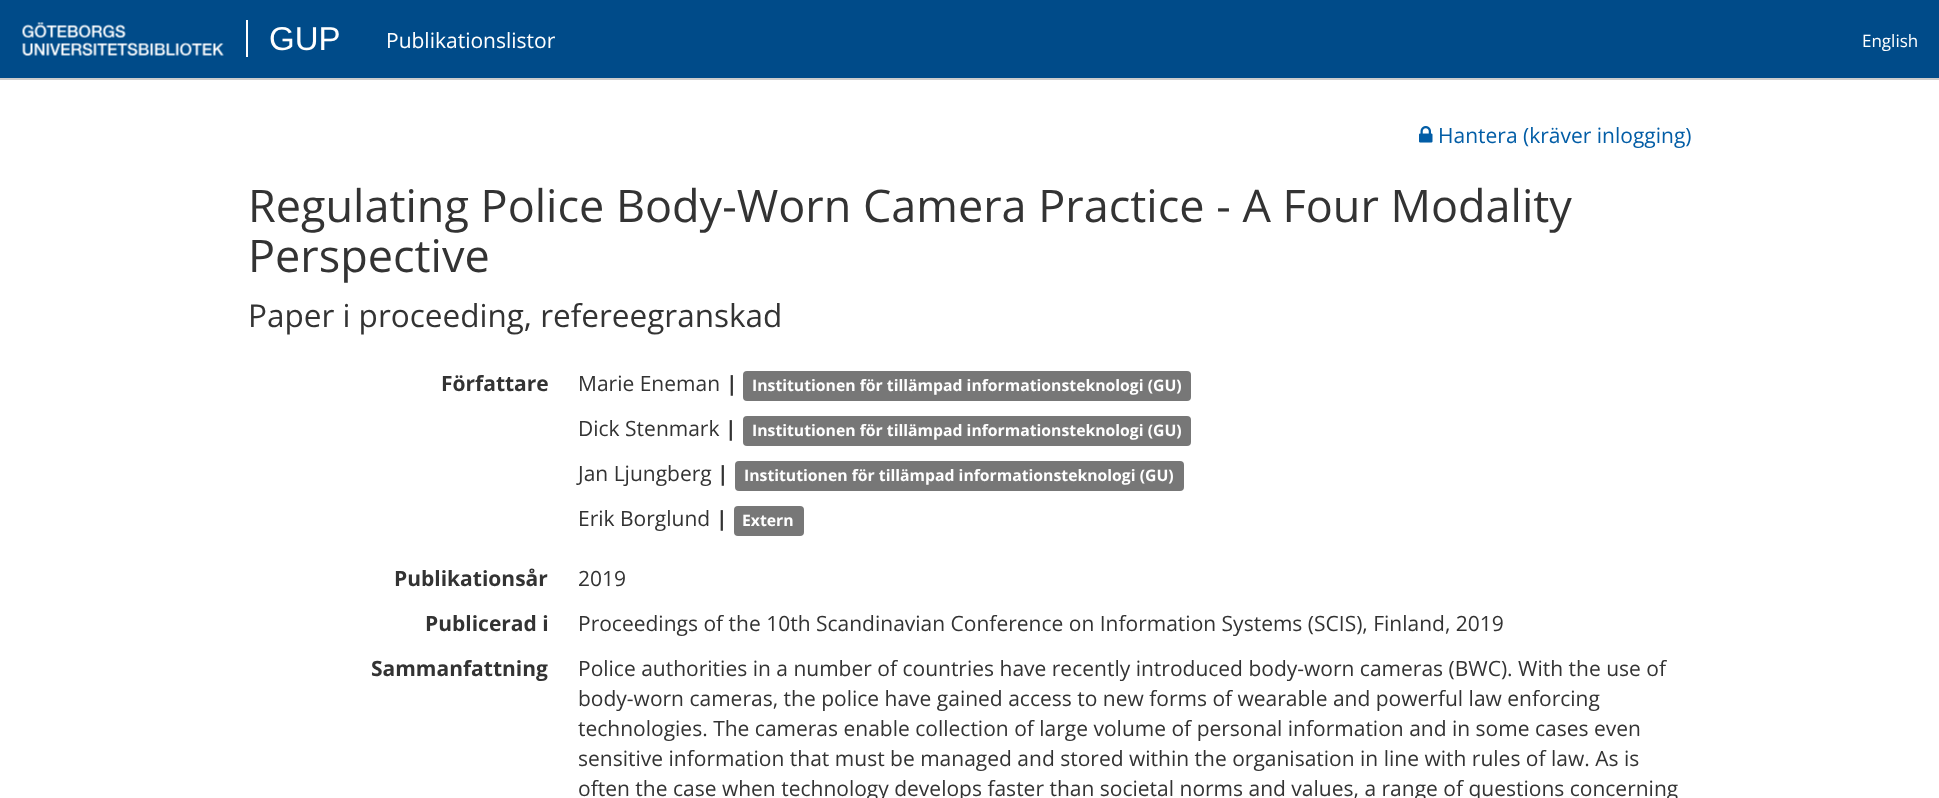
(async () => {
    const canvas = document.querySelector("canvas");
    canvas.width = 1939;
    canvas.height = 798;
    const context = canvas.getContext("2d");
    context.miterLimit = 4;
    context.fontKerning = "normal";
    function write(s, x, y, font, color) {
        context.font = font;
        context.fillStyle = color;
        context.fillText(s, x, y);
    }
    function block(x, y, w, h, color) {
        context.fillStyle = color;
        context.fillRect(x, y, w, h);
    }
    function card(x, y, w, h, r, color) {
        context.fillStyle = color;
        context.beginPath();
        context.roundRect(x, y, w, h, r);
        context.fill();
    }
    async function photo(src, x, y, w, h) {
        const img = new Image();
        img.src = src;
        await img.decode();
        context.drawImage(img, x, y, w, h);
    }

    block(0, 0, 1939, 798, "rgb(255, 255, 255)");
    block(0, 0, 1939, 78, "rgb(0, 75, 137)");
    block(0, 78, 1939, 2, "rgb(204, 204, 204)");
    await photo("media/1.png", 22, 22, 202, 34);
    block(246, 20, 2, 37, "rgb(255, 255, 255)");
    write("GUP", 269, 50, "33px Liberation Sans", "rgb(255, 255, 255)");
    write("Publikationslistor", 386, 48, "21px Open Sans", "rgb(255, 255, 255)");
    write("English", 1862, 47, "17px Open Sans", "rgb(255, 255, 255)");
    await photo("media/2.png", 1419, 126, 14, 17);
    write("Hantera (kräver inlogging)", 1438, 143, "21px Open Sans", "rgb(2, 93, 166)");
    write("Regulating Police Body-Worn Camera Practice - A Four Modality", 248, 222, "45px Open Sans", "rgb(51, 51, 51)");
    write("Perspective", 248, 272, "45px Open Sans", "rgb(51, 51, 51)");
    write("Paper i proceeding, refereegranskad", 248, 327, "31.5px Open Sans", "rgb(51, 51, 51)");
    write("Författare", 441, 391, "bold 21px Open Sans", "rgb(51, 51, 51)");
    write("Marie Eneman", 578, 391, "21px Open Sans", "rgb(51, 51, 51)");
    write("|", 726, 391, "bold 21px Open Sans", "rgb(51, 51, 51)");
    card(743, 371, 448, 30, 4, "rgb(119, 119, 119)");
    write("Institutionen för tillämpad informationsteknologi (GU)", 752, 391, "bold 15.75px Open Sans", "rgb(255, 255, 255)");
    write("Dick Stenmark", 578, 436, "21px Open Sans", "rgb(51, 51, 51)");
    write("|", 725, 436, "bold 21px Open Sans", "rgb(51, 51, 51)");
    card(743, 416, 448, 30, 4, "rgb(119, 119, 119)");
    write("Institutionen för tillämpad informationsteknologi (GU)", 752, 436, "bold 15.75px Open Sans", "rgb(255, 255, 255)");
    write("Jan Ljungberg", 578, 481, "21px Open Sans", "rgb(51, 51, 51)");
    write("|", 717, 481, "bold 21px Open Sans", "rgb(51, 51, 51)");
    card(735, 461, 449, 30, 4, "rgb(119, 119, 119)");
    write("Institutionen för tillämpad informationsteknologi (GU)", 744, 481, "bold 15.75px Open Sans", "rgb(255, 255, 255)");
    write("Erik Borglund", 578, 526, "21px Open Sans", "rgb(51, 51, 51)");
    write("|", 716, 526, "bold 21px Open Sans", "rgb(51, 51, 51)");
    card(734, 506, 70, 30, 4, "rgb(119, 119, 119)");
    write("Extern", 742, 526, "bold 15.75px Open Sans", "rgb(255, 255, 255)");
    write("Publikationsår", 394, 586, "bold 21px Open Sans", "rgb(51, 51, 51)");
    write("2019", 578, 586, "21px Open Sans", "rgb(51, 51, 51)");
    write("Publicerad i", 425, 631, "bold 21px Open Sans", "rgb(51, 51, 51)");
    write("Proceedings of the 10th Scandinavian Conference on Information Systems (SCIS), Finland, 2019", 578, 631, "21px Open Sans", "rgb(51, 51, 51)");
    write("Sammanfattning", 371, 676, "bold 21px Open Sans", "rgb(51, 51, 51)");
    write("Police authorities in a number of countries have recently introduced body-worn cameras (BWC). With the use of", 578, 676, "21px Open Sans", "rgb(51, 51, 51)");
    write("body-worn cameras, the police have gained access to new forms of wearable and powerful law enforcing", 578, 706, "21px Open Sans", "rgb(51, 51, 51)");
    write("technologies. The cameras enable collection of large volume of personal information and in some cases even", 578, 736, "21px Open Sans", "rgb(51, 51, 51)");
    write("sensitive information that must be managed and stored within the organisation in line with rules of law. As is", 578, 766, "21px Open Sans", "rgb(51, 51, 51)");
    write("often the case when technology develops faster than societal norms and values, a range of questions concerning", 578, 796, "21px Open Sans", "rgb(51, 51, 51)");
})();
